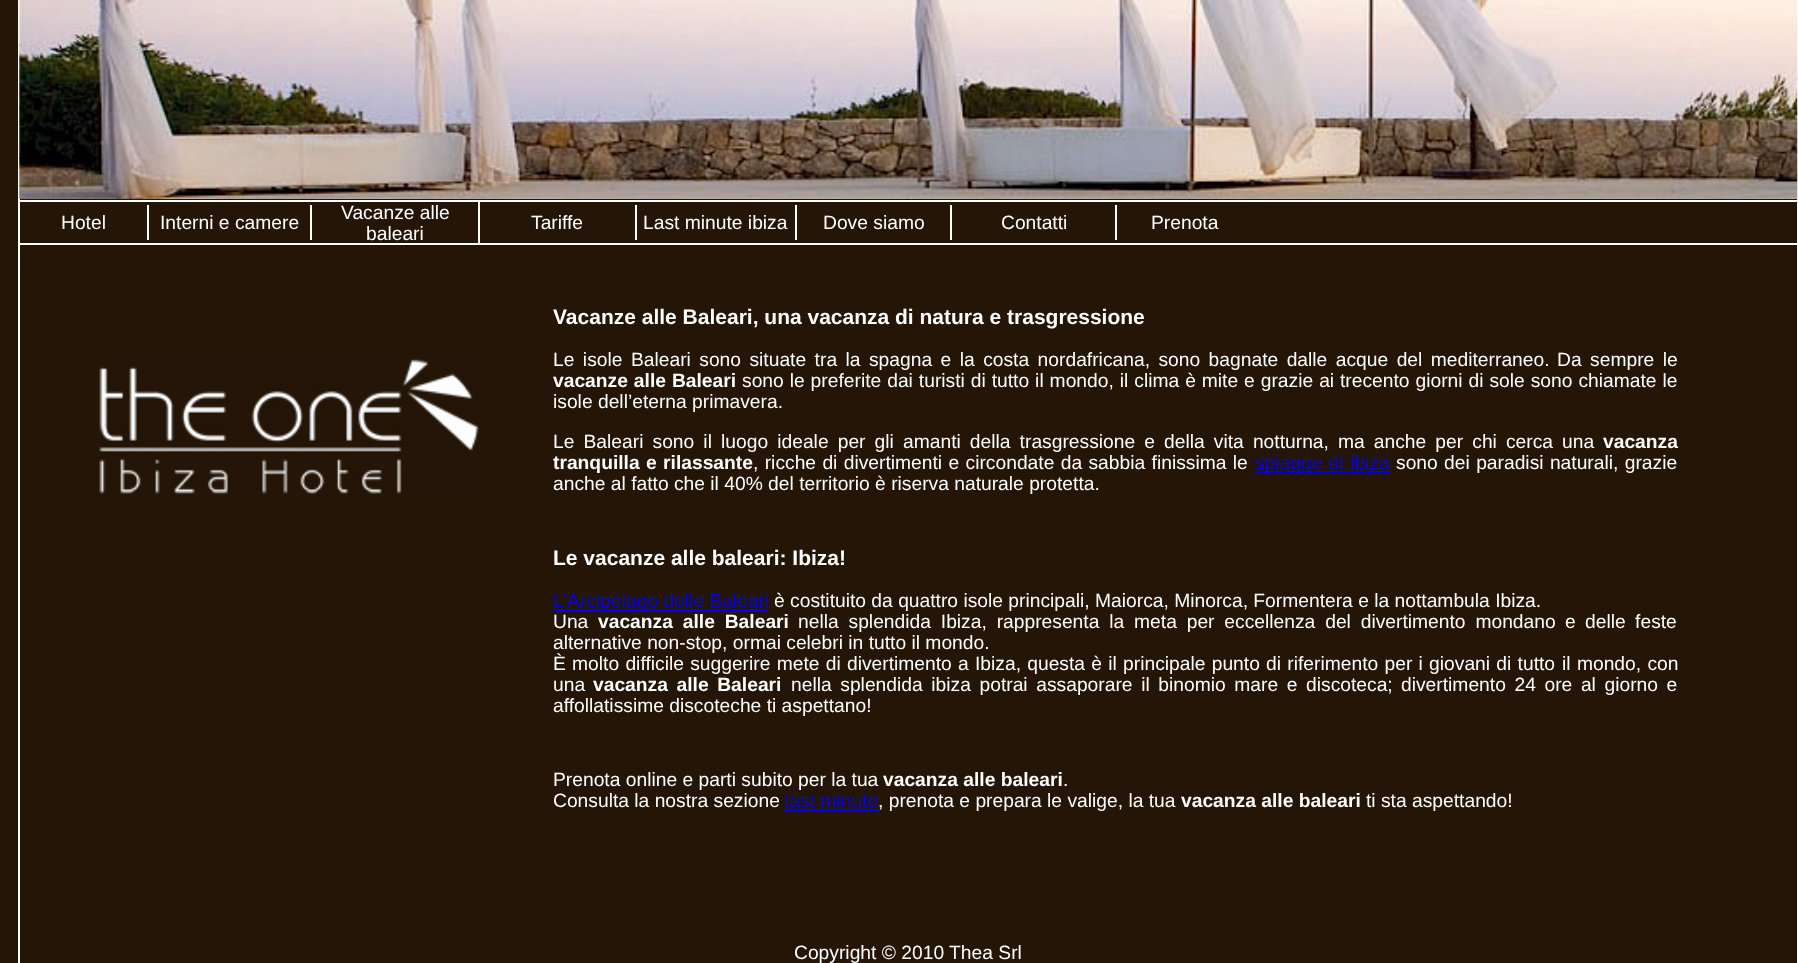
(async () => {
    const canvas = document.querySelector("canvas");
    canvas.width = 1798;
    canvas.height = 963;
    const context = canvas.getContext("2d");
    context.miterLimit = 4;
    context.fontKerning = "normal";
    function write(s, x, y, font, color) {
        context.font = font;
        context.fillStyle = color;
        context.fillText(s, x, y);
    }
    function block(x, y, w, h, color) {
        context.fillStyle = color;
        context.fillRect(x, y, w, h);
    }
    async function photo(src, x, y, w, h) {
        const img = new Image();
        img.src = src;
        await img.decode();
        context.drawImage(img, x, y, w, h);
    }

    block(0, 0, 1798, 963, "rgb(36, 21, 7)");
    context.strokeStyle = "rgb(255, 255, 255)";
    context.lineWidth = 2;
    context.strokeRect(19, -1, 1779, 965);
    await photo("media/1.png", 19, 0, 1779, 199);
    block(19, 200, 1778, 2, "rgb(255, 255, 255)");
    block(19, 243, 1778, 2, "rgb(255, 255, 255)");
    block(147, 205, 2, 35, "rgb(255, 255, 255)");
    write("Hotel", 61, 229, "19.25px Liberation Sans", "rgb(255, 255, 255)");
    block(310, 205, 2, 35, "rgb(255, 255, 255)");
    write("Interni e camere", 160, 229, "19.25px Liberation Sans", "rgb(255, 255, 255)");
    block(478, 201, 2, 42, "rgb(255, 255, 255)");
    write("Vacanze alle", 341, 219, "19.25px Liberation Sans", "rgb(255, 255, 255)");
    write("baleari", 366, 240, "19.25px Liberation Sans", "rgb(255, 255, 255)");
    block(635, 205, 2, 35, "rgb(255, 255, 255)");
    write("Tariffe", 531, 229, "19.25px Liberation Sans", "rgb(255, 255, 255)");
    block(795, 205, 2, 35, "rgb(255, 255, 255)");
    write("Last minute ibiza", 643, 229, "19.25px Liberation Sans", "rgb(255, 255, 255)");
    block(950, 205, 2, 35, "rgb(255, 255, 255)");
    write("Dove siamo", 823, 229, "19.25px Liberation Sans", "rgb(255, 255, 255)");
    block(1115, 205, 2, 35, "rgb(255, 255, 255)");
    write("Contatti", 1001, 229, "19.25px Liberation Sans", "rgb(255, 255, 255)");
    write("Prenota", 1151, 229, "19.25px Liberation Sans", "rgb(255, 255, 255)");
    await photo("media/2.png", 99, 359, 380, 135);
    write("Vacanze alle Baleari, una vacanza di natura e trasgressione", 553, 324, "bold 21px Liberation Sans", "rgb(255, 255, 255)");
    context.wordSpacing = "3.1px";
    write("Le isole Baleari sono situate tra la spagna e la costa nordafricana, sono bagnate dalle acque del mediterraneo.", 553, 366, "19.25px Liberation Sans", "rgb(255, 255, 255)");
    write("Da sempre le", 1557, 366, "19.25px Liberation Sans", "rgb(255, 255, 255)");
    context.wordSpacing = "0.6px";
    write("vacanze alle Baleari", 553, 387, "bold 19.25px Liberation Sans", "rgb(255, 255, 255)");
    write("sono le preferite dai turisti di tutto il mondo, il clima è mite e grazie ai", 742, 387, "19.25px Liberation Sans", "rgb(255, 255, 255)");
    write("trecento giorni di sole sono chiamate le", 1340, 387, "19.25px Liberation Sans", "rgb(255, 255, 255)");
    context.wordSpacing = "0px";
    write("isole dell’eterna primavera.", 553, 408, "19.25px Liberation Sans", "rgb(255, 255, 255)");
    context.wordSpacing = "3.75px";
    write("Le Baleari sono il luogo ideale per gli amanti della trasgressione e della vita notturna, ma anche per chi cerca", 553, 448, "19.25px Liberation Sans", "rgb(255, 255, 255)");
    context.wordSpacing = "0px";
    write("una", 1562, 448, "19.25px Liberation Sans", "rgb(255, 255, 255)");
    write("vacanza", 1603, 448, "bold 19.25px Liberation Sans", "rgb(255, 255, 255)");
    context.wordSpacing = "1px";
    write("tranquilla e rilassante", 553, 469, "bold 19.25px Liberation Sans", "rgb(255, 255, 255)");
    write(", ricche di divertimenti e circondate da sabbia finissima le", 753, 469, "19.25px Liberation Sans", "rgb(255, 255, 255)");
    block(1255, 471, 135, 2, "rgb(0, 0, 238)");
    write("spiagge di ibiza", 1255, 469, "19.25px Liberation Sans", "rgb(0, 0, 238)");
    write("sono dei paradisi naturali, grazie", 1396, 469, "19.25px Liberation Sans", "rgb(255, 255, 255)");
    context.wordSpacing = "0px";
    write("anche al fatto che il 40% del territorio è riserva naturale protetta.", 553, 490, "19.25px Liberation Sans", "rgb(255, 255, 255)");
    write("Le vacanze alle baleari: Ibiza!", 553, 565, "bold 21px Liberation Sans", "rgb(255, 255, 255)");
    block(553, 609, 215, 2, "rgb(0, 0, 238)");
    write("L’Arcipelago delle Baleari", 553, 607, "19.25px Liberation Sans", "rgb(0, 0, 238)");
    write("è costituito da quattro isole principali, Maiorca, Minorca, Formentera e la nottambula Ibiza.", 774, 607, "19.25px Liberation Sans", "rgb(255, 255, 255)");
    write("Una", 553, 628, "19.25px Liberation Sans", "rgb(255, 255, 255)");
    context.wordSpacing = "4.5px";
    write("vacanza alle Baleari", 598, 628, "bold 19.25px Liberation Sans", "rgb(255, 255, 255)");
    write("nella splendida Ibiza, rappresenta la meta per eccellenza del divertimento mondano", 798, 628, "19.25px Liberation Sans", "rgb(255, 255, 255)");
    context.wordSpacing = "4px";
    write("e delle feste", 1565, 628, "19.25px Liberation Sans", "rgb(255, 255, 255)");
    context.wordSpacing = "0px";
    write("alternative non-stop, ormai celebri in tutto il mondo.", 553, 649, "19.25px Liberation Sans", "rgb(255, 255, 255)");
    context.wordSpacing = "0.9px";
    write("È molto difficile suggerire mete di divertimento a Ibiza, questa è il principale punto di riferimento per i giovani di tutto", 553, 670, "19.25px Liberation Sans", "rgb(255, 255, 255)");
    context.wordSpacing = "1px";
    write("il mondo, con", 1562, 670, "19.25px Liberation Sans", "rgb(255, 255, 255)");
    context.wordSpacing = "0px";
    write("una", 553, 691, "19.25px Liberation Sans", "rgb(255, 255, 255)");
    context.wordSpacing = "3.25px";
    write("vacanza alle Baleari", 593, 691, "bold 19.25px Liberation Sans", "rgb(255, 255, 255)");
    write("nella splendida ibiza potrai assaporare il binomio mare e discoteca;", 791, 691, "19.25px Liberation Sans", "rgb(255, 255, 255)");
    write("divertimento 24 ore al giorno e", 1401, 691, "19.25px Liberation Sans", "rgb(255, 255, 255)");
    context.wordSpacing = "0px";
    write("affollatissime discoteche ti aspettano!", 553, 712, "19.25px Liberation Sans", "rgb(255, 255, 255)");
    write("Prenota online e parti subito per la tua", 553, 786, "19.25px Liberation Sans", "rgb(255, 255, 255)");
    write("vacanza alle baleari", 883, 786, "bold 19.25px Liberation Sans", "rgb(255, 255, 255)");
    write(".", 1063, 786, "19.25px Liberation Sans", "rgb(255, 255, 255)");
    write("Consulta la nostra sezione", 553, 807, "19.25px Liberation Sans", "rgb(255, 255, 255)");
    write("last minute", 785, 807, "19.25px Liberation Sans", "rgb(0, 0, 238)");
    block(784, 809, 95, 2, "rgb(0, 0, 238)");
    write(", prenota e prepara le valige, la tua", 878, 807, "19.25px Liberation Sans", "rgb(255, 255, 255)");
    write("vacanza alle baleari", 1181, 807, "bold 19.25px Liberation Sans", "rgb(255, 255, 255)");
    write("ti sta aspettando!", 1366, 807, "19.25px Liberation Sans", "rgb(255, 255, 255)");
    write("Copyright © 2010 Thea Srl", 794, 959, "19.25px Liberation Sans", "rgb(255, 255, 255)");
})();
